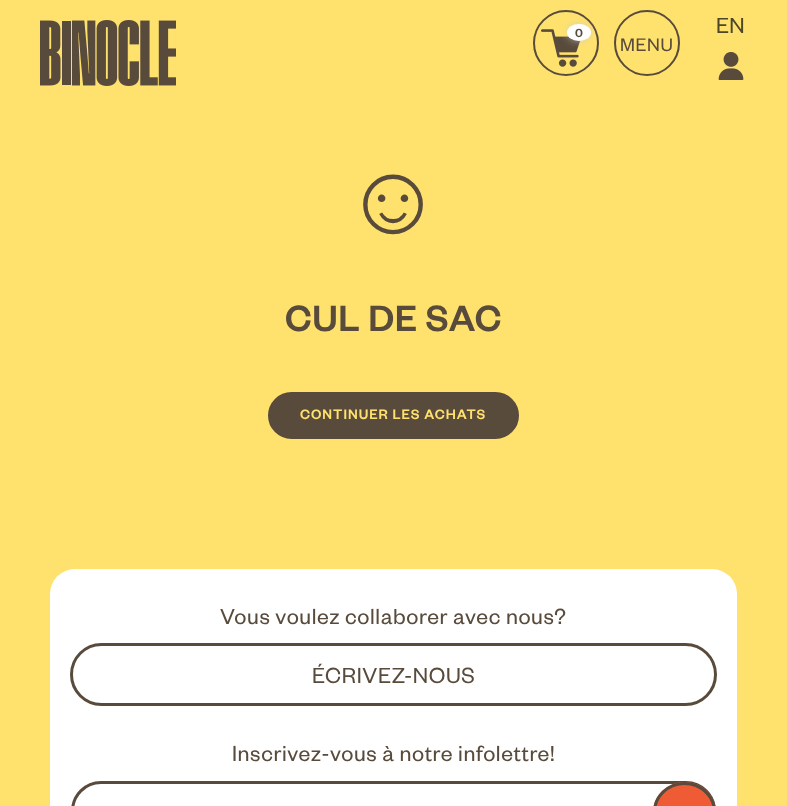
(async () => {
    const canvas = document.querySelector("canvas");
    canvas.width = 787;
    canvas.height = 806;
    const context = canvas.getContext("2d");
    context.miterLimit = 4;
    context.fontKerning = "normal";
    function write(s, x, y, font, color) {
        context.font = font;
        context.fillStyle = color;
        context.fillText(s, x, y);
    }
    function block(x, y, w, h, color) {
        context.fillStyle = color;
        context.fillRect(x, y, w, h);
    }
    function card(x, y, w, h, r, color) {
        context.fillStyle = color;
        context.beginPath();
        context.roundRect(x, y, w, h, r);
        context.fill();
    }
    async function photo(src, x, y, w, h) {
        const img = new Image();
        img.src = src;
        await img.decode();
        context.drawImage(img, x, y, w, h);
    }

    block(0, 0, 787, 806, "rgb(255, 226, 110)");
    await photo("media/1.png", 40, 20, 136, 66);
    context.beginPath();
    context.arc(566, 43, 32, 0, Math.PI * 2);
    context.strokeStyle = "rgb(89, 75, 60)";
    context.lineWidth = 2;
    context.stroke();
    await photo("media/2.png", 541, 29, 40, 38);
    context.fillStyle = "rgb(204, 204, 204)";
    context.filter = "blur(5px)";
    context.beginPath();
    context.roundRect(569, 26, 20, 13, 6.5);
    context.fill();
    context.filter = "none";
    context.fillStyle = "rgb(255, 255, 255)";
    context.beginPath();
    context.ellipse(579, 32.5, 12, 8.5, 0, 0, Math.PI * 2);
    context.fill();
    context.letterSpacing = "0.6px";
    write("0", 575, 37, "500 13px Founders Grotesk", "rgb(89, 75, 60)");
    context.letterSpacing = "0px";
    write("EN", 716, 33, "24px Founders Grotesk", "rgb(77, 70, 41)");
    await photo("media/3.png", 718, 52, 26, 28);
    context.beginPath();
    context.arc(647, 43, 32, 0, Math.PI * 2);
    context.stroke();
    context.letterSpacing = "0.6px";
    write("MENU", 620, 51, "20px Founders Grotesk", "rgb(89, 75, 60)");
    write("☺", 342, 233, "100px Liberation Serif", "rgb(89, 75, 60)");
    write("CUL DE SAC", 285, 331, "500 40px Founders Grotesk", "rgb(89, 75, 60)");
    context.beginPath();
    context.roundRect(269, 393, 249, 45, 22.5);
    context.fill();
    context.stroke();
    context.letterSpacing = "1px";
    write("CONTINUER LES ACHATS", 300, 419, "500 15px Founders Grotesk", "rgb(255, 226, 110)");
    card(50, 569, 687, 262, 25, "rgb(255, 255, 255)");
    context.letterSpacing = "0.6px";
    write("Vous voulez collaborer avec nous?", 220, 624, "24px Founders Grotesk", "rgb(89, 75, 60)");
    context.beginPath();
    context.roundRect(71.5, 644.5, 644, 60, 30);
    context.lineWidth = 3;
    context.stroke();
    write("ÉCRIVEZ-NOUS", 312, 683, "24px Founders Grotesk", "rgb(89, 75, 60)");
    write("Inscrivez-vous à notre infolettre!", 232, 761, "24px Founders Grotesk", "rgb(89, 75, 60)");
    context.beginPath();
    context.roundRect(72.5, 782.5, 642, 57, 30);
    context.stroke();
    context.fillStyle = "rgb(239, 91, 52)";
    context.beginPath();
    context.ellipse(684.5, 812, 31.5, 30, 0, 0, Math.PI * 2);
    context.fill();
    context.beginPath();
    context.moveTo(684.5, 783.5);
    context.bezierCurveTo(701, 783.5, 714.5, 796.5, 714.5, 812);
    context.bezierCurveTo(714.5, 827.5, 701, 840.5, 684.5, 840.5);
    context.bezierCurveTo(668, 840.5, 654.5, 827.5, 654.5, 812);
    context.bezierCurveTo(654.5, 796.5, 668, 783.5, 684.5, 783.5);
    context.closePath();
    context.stroke();
})();
